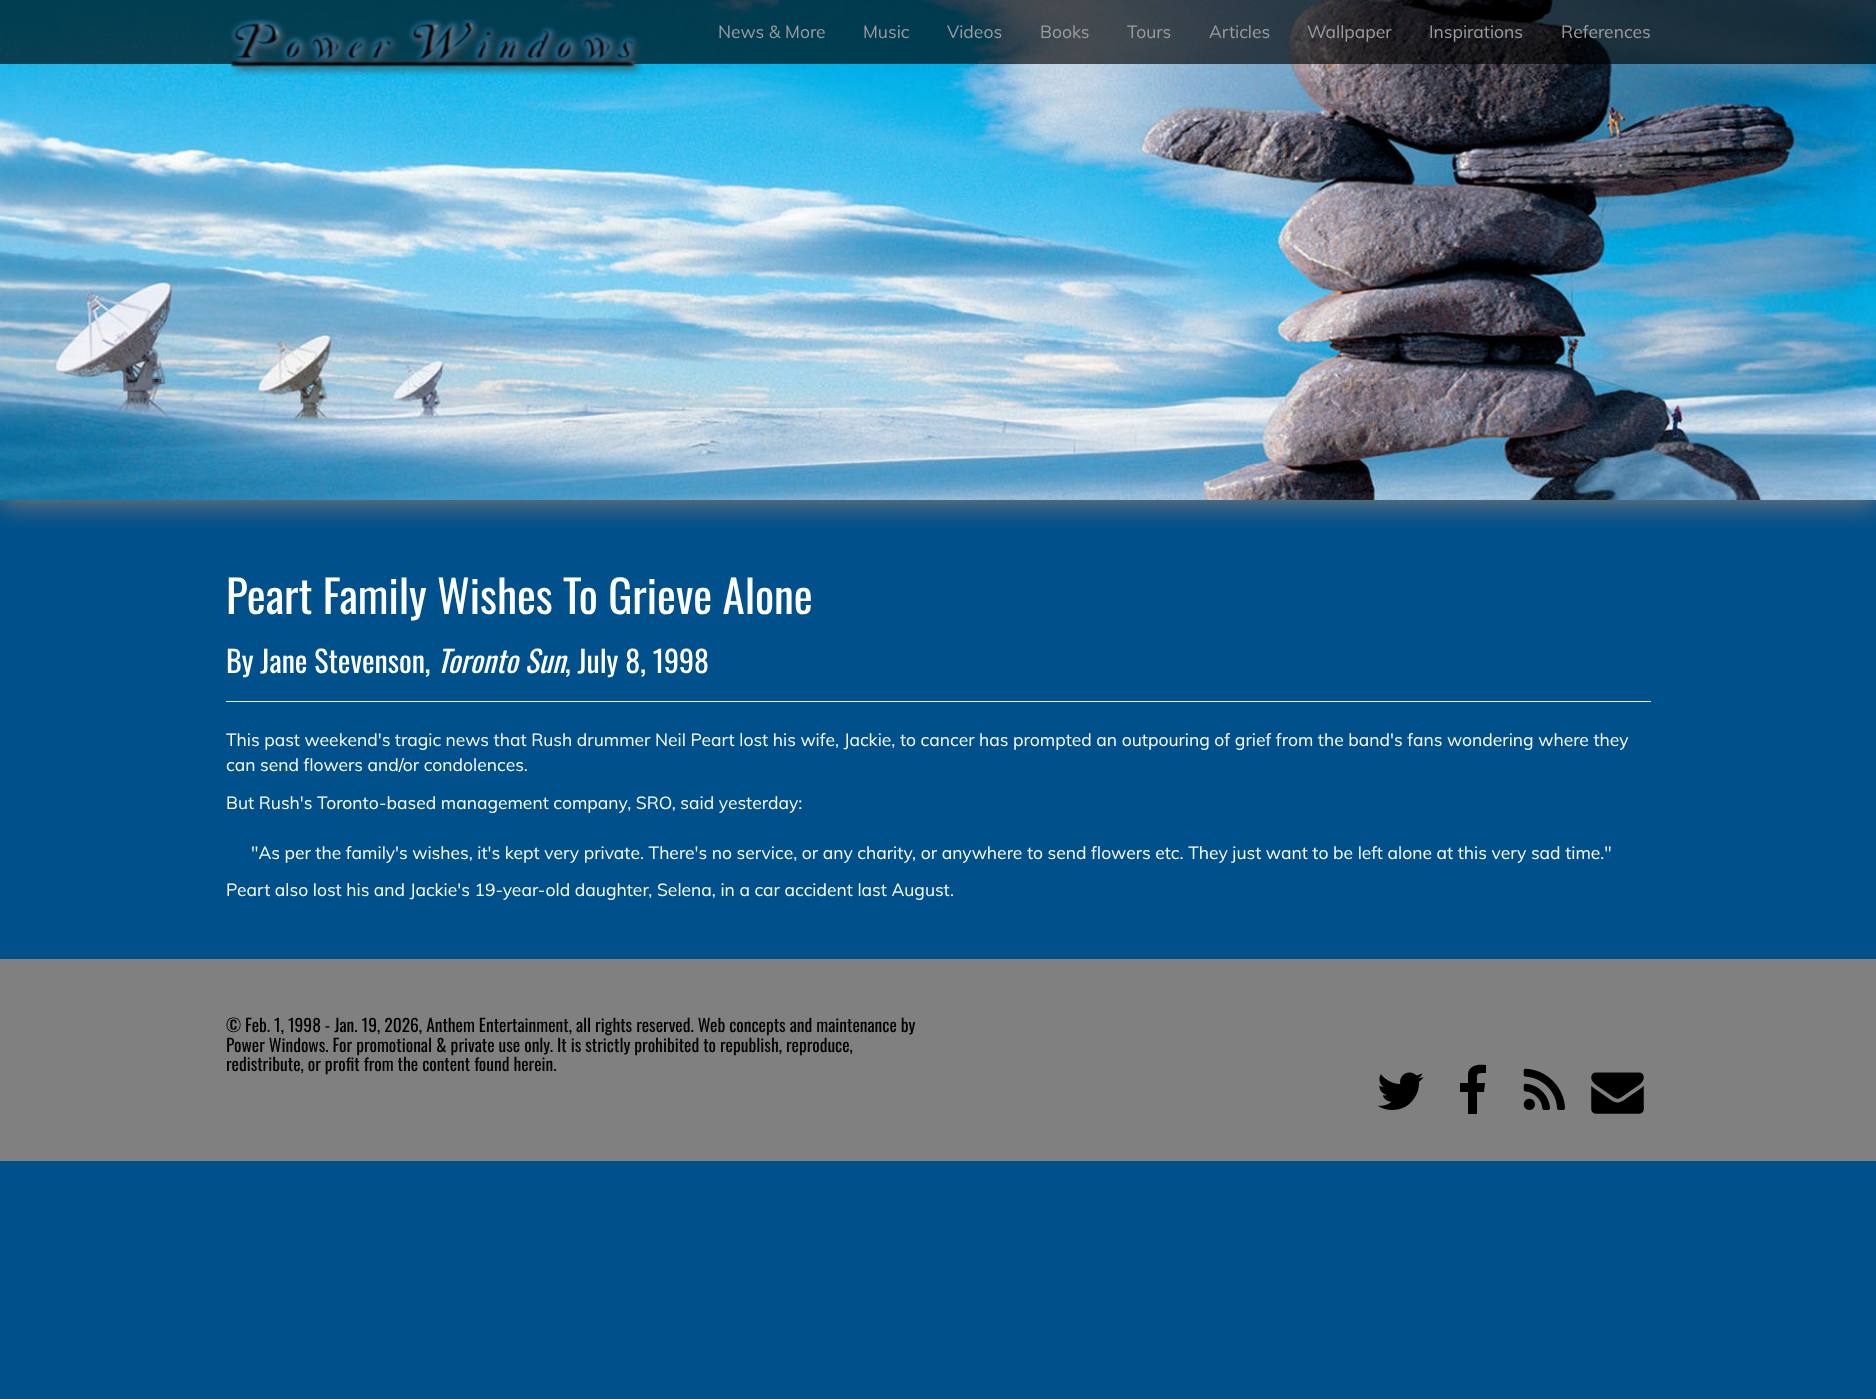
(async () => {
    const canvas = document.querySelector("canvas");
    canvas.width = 1876;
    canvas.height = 1399;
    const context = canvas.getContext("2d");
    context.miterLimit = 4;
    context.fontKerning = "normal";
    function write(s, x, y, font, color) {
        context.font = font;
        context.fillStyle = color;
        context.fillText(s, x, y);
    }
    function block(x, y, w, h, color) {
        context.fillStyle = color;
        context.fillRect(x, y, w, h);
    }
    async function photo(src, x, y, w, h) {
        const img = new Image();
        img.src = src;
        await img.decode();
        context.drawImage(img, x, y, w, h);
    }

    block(0, 0, 1876, 1399, "rgb(0, 81, 139)");
    await photo("media/1.png", 0, 0, 1876, 528);
    block(0, 0, 1876, 64, "rgba(0, 0, 0, 0.65)");
    await photo("media/2.png", 230, 19, 414, 57);
    write("News & More", 718, 38, "17.5px Muli", "rgb(157, 157, 157)");
    write("Music", 863, 38, "17.5px Muli", "rgb(157, 157, 157)");
    write("Videos", 947, 38, "17.5px Muli", "rgb(157, 157, 157)");
    write("Books", 1040, 38, "17.5px Muli", "rgb(157, 157, 157)");
    write("Tours", 1127, 38, "17.5px Muli", "rgb(157, 157, 157)");
    write("Articles", 1209, 38, "17.5px Muli", "rgb(157, 157, 157)");
    write("Wallpaper", 1307, 38, "17.5px Muli", "rgb(157, 157, 157)");
    write("Inspirations", 1429, 38, "17.5px Muli", "rgb(157, 157, 157)");
    write("References", 1561, 38, "17.5px Muli", "rgb(157, 157, 157)");
    write("Peart Family Wishes To Grieve Alone", 226, 614, "45px Oswald", "rgb(255, 255, 255)");
    write("By Jane Stevenson,", 226, 673, "30px Oswald", "rgb(255, 255, 255)");
    write("Toronto Sun", 437, 673, "italic 30px Oswald", "rgb(255, 255, 255)");
    write(", July 8, 1998", 565, 673, "30px Oswald", "rgb(255, 255, 255)");
    block(226, 701, 1425, 1, "rgb(238, 238, 238)");
    write("This past weekend's tragic news that Rush drummer Neil Peart lost his wife, Jackie, to cancer has prompted an outpouring of grief from the band's fans wondering where they", 226, 746, "17.5px Muli", "rgb(255, 255, 255)");
    write("can send flowers and/or condolences.", 226, 771, "17.5px Muli", "rgb(255, 255, 255)");
    write("But Rush's Toronto-based management company, SRO, said yesterday:", 226, 809, "17.5px Muli", "rgb(255, 255, 255)");
    write("\"As per the family's wishes, it's kept very private. There's no service, or any charity, or anywhere to send flowers etc. They just want to be left alone at this very sad time.\"", 251, 859, "17.5px Muli", "rgb(255, 255, 255)");
    write("Peart also lost his and Jackie's 19-year-old daughter, Selena, in a car accident last August.", 226, 896, "17.5px Muli", "rgb(255, 255, 255)");
    block(0, 959, 1876, 202, "rgb(128, 128, 128)");
    write("© Feb. 1, 1998 - Jan. 19, 2026, Anthem Entertainment, all rights reserved. Web concepts and maintenance by", 226, 1032, "17.5px Oswald", "rgb(0, 0, 0)");
    write("Power Windows. For promotional & private use only. It is strictly prohibited to republish, reproduce,", 226, 1052, "17.5px Oswald", "rgb(0, 0, 0)");
    write("redistribute, or profit from the content found herein.", 226, 1071, "17.5px Oswald", "rgb(0, 0, 0)");
    await photo("media/3.png", 1377, 1072, 47, 38);
    context.beginPath();
    context.moveTo(1486, 1065);
    context.lineTo(1486, 1073);
    context.bezierCurveTo(1476, 1073, 1477, 1073, 1477, 1083);
    context.lineTo(1485, 1083);
    context.lineTo(1484, 1092);
    context.lineTo(1477, 1092);
    context.lineTo(1477, 1114);
    context.lineTo(1468, 1114);
    context.lineTo(1468, 1092);
    context.lineTo(1460, 1092);
    context.lineTo(1460, 1083);
    context.lineTo(1468, 1083);
    context.lineTo(1468, 1074);
    context.bezierCurveTo(1469, 1065, 1478, 1064, 1486, 1065);
    context.closePath();
    context.fill();
    await photo("media/4.png", 1523, 1068, 42, 42);
    await photo("media/5.png", 1591, 1072, 53, 42);
})();
